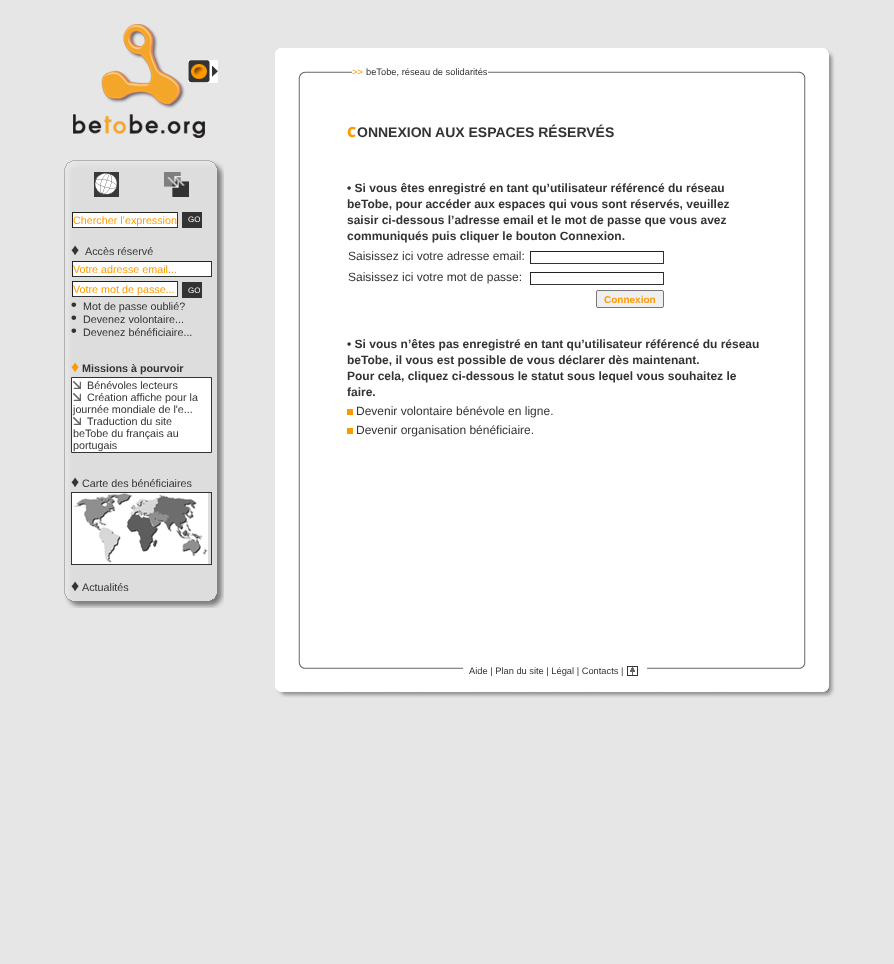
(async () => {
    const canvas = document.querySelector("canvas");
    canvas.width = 894;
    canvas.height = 964;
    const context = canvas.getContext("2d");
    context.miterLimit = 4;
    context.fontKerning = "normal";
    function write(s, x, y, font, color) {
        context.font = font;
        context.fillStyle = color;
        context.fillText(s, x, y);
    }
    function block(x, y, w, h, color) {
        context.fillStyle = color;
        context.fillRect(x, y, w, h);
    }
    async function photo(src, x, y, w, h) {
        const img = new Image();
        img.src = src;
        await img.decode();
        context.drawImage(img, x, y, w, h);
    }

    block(0, 0, 894, 964, "rgb(230, 230, 230)");
    await photo("media/2.png", 73, 24, 132, 114);
    block(188, 60, 30, 23, "rgb(255, 255, 255)");
    await photo("media/1.png", 188, 60, 30, 23);
    await photo("media/3.png", 64, 160, 160, 448);
    await photo("media/4.png", 94, 172, 25, 25);
    await photo("media/5.png", 164, 172, 25, 25);
    block(73, 213, 104, 14, "rgb(255, 255, 255)");
    block(72, 212, 106, 1, "rgb(34, 34, 34)");
    block(177, 212, 1, 16, "rgb(51, 51, 51)");
    block(72, 227, 106, 1, "rgb(51, 51, 51)");
    block(72, 212, 1, 16, "rgb(34, 34, 34)");
    write("Chercher l’expression", 73, 224, "10.75px Liberation Sans", "rgb(255, 153, 0)");
    block(182, 212, 20, 16, "rgb(51, 51, 51)");
    write("GO", 188, 222, "8px Liberation Sans", "rgb(255, 255, 255)");
    write("♦", 71, 255, "16px Liberation Sans", "rgb(51, 51, 51)");
    write("Accès réservé", 85, 255, "10.75px Liberation Sans", "rgb(51, 51, 51)");
    block(73, 262, 138, 14, "rgb(255, 255, 255)");
    block(72, 261, 140, 1, "rgb(34, 34, 34)");
    block(211, 261, 1, 16, "rgb(51, 51, 51)");
    block(72, 276, 140, 1, "rgb(51, 51, 51)");
    block(72, 261, 1, 16, "rgb(34, 34, 34)");
    write("Votre adresse email...", 73, 273, "10.75px Liberation Sans", "rgb(255, 153, 0)");
    block(73, 282, 104, 14, "rgb(255, 255, 255)");
    block(72, 281, 106, 1, "rgb(34, 34, 34)");
    block(177, 281, 1, 16, "rgb(51, 51, 51)");
    block(72, 296, 106, 1, "rgb(51, 51, 51)");
    block(72, 281, 1, 16, "rgb(34, 34, 34)");
    write("Votre mot de passe...", 73, 293, "10.75px Liberation Sans", "rgb(255, 153, 0)");
    block(182, 282, 20, 16, "rgb(51, 51, 51)");
    write("GO", 188, 293, "8px Liberation Sans", "rgb(255, 255, 255)");
    write("•", 71, 310, "bold 16px Liberation Sans", "rgb(51, 51, 51)");
    write("Mot de passe oublié?", 83, 310, "10.75px Liberation Sans", "rgb(51, 51, 51)");
    write("•", 71, 323, "bold 16px Liberation Sans", "rgb(51, 51, 51)");
    write("Devenez volontaire...", 83, 323, "10.75px Liberation Sans", "rgb(51, 51, 51)");
    write("•", 71, 336, "bold 16px Liberation Sans", "rgb(51, 51, 51)");
    write("Devenez bénéficiaire...", 83, 336, "10.75px Liberation Sans", "rgb(51, 51, 51)");
    write("♦", 71, 372, "16px Liberation Sans", "rgb(255, 153, 0)");
    write("Missions à pourvoir", 82, 372, "bold 10.75px Liberation Sans", "rgb(51, 51, 51)");
    context.fillStyle = "rgb(255, 255, 255)";
    context.beginPath();
    context.rect(71.5, 377.5, 140, 75);
    context.fill();
    context.strokeStyle = "rgb(51, 51, 51)";
    context.stroke();
    await photo("media/6.png", 73, 381, 8, 8);
    write("Bénévoles lecteurs", 87, 389, "10.75px Liberation Sans", "rgb(51, 51, 51)");
    await photo("media/6.png", 73, 393, 8, 8);
    write("Création affiche pour la", 87, 401, "10.75px Liberation Sans", "rgb(51, 51, 51)");
    write("journée mondiale de l'e...", 73, 413, "10.75px Liberation Sans", "rgb(51, 51, 51)");
    await photo("media/6.png", 73, 417, 8, 8);
    write("Traduction du site", 87, 425, "10.75px Liberation Sans", "rgb(51, 51, 51)");
    write("beTobe du français au", 73, 437, "10.75px Liberation Sans", "rgb(51, 51, 51)");
    write("portugais", 73, 449, "10.75px Liberation Sans", "rgb(51, 51, 51)");
    write("♦", 71, 487, "16px Liberation Sans", "rgb(51, 51, 51)");
    write("Carte des bénéficiaires", 82, 487, "10.75px Liberation Sans", "rgb(51, 51, 51)");
    context.strokeRect(71.5, 492.5, 140, 72);
    await photo("media/7.png", 72, 493, 136, 71);
    write("♦", 71, 591, "16px Liberation Sans", "rgb(51, 51, 51)");
    write("Actualités", 82, 591, "10.75px Liberation Sans", "rgb(51, 51, 51)");
    await photo("media/8.png", 275, 48, 560, 36);
    block(352, 71, 136, 2, "rgb(255, 255, 255)");
    write(">>", 352, 75, "9.3px Liberation Sans", "rgb(255, 153, 0)");
    write("beTobe, réseau de solidarités", 366, 75, "9.3px Liberation Sans", "rgb(51, 51, 51)");
    await photo("media/9.png", 275, 84, 560, 560);
    write("C", 347, 137, "900 14px Noto Sans", "rgb(255, 153, 0)");
    write("ONNEXION AUX ESPACES RÉSERVÉS", 357, 137, "bold 14px Liberation Sans", "rgb(51, 51, 51)");
    write("• Si vous êtes enregistré en tant qu’utilisateur référencé du réseau", 347, 192, "bold 12px Liberation Sans", "rgb(51, 51, 51)");
    write("beTobe, pour accéder aux espaces qui vous sont réservés, veuillez", 347, 208, "bold 12px Liberation Sans", "rgb(51, 51, 51)");
    write("saisir ci-dessous l’adresse email et le mot de passe que vous avez", 347, 224, "bold 12px Liberation Sans", "rgb(51, 51, 51)");
    write("communiqués puis cliquer le bouton Connexion.", 347, 240, "bold 12px Liberation Sans", "rgb(51, 51, 51)");
    write("Saisissez ici votre adresse email:", 348, 260, "12px Liberation Sans", "rgb(51, 51, 51)");
    block(530, 251, 134, 1, "rgb(34, 34, 34)");
    block(663, 251, 1, 13, "rgb(51, 51, 51)");
    block(530, 263, 134, 1, "rgb(51, 51, 51)");
    block(530, 251, 1, 13, "rgb(34, 34, 34)");
    write("Saisissez ici votre mot de passe:", 348, 281, "12px Liberation Sans", "rgb(51, 51, 51)");
    block(530, 272, 134, 1, "rgb(34, 34, 34)");
    block(663, 272, 1, 13, "rgb(51, 51, 51)");
    block(530, 284, 134, 1, "rgb(51, 51, 51)");
    block(530, 272, 1, 13, "rgb(34, 34, 34)");
    context.fillStyle = "rgb(239, 239, 239)";
    context.beginPath();
    context.roundRect(596.5, 290.5, 67, 17, 1.5);
    context.fill();
    context.strokeStyle = "rgb(118, 118, 118)";
    context.stroke();
    write("Connexion", 604, 303, "bold 10px Liberation Sans", "rgb(255, 153, 0)");
    write("• Si vous n’êtes pas enregistré en tant qu’utilisateur référencé du réseau", 347, 348, "bold 12px Liberation Sans", "rgb(51, 51, 51)");
    write("beTobe, il vous est possible de vous déclarer dès maintenant.", 347, 364, "bold 12px Liberation Sans", "rgb(51, 51, 51)");
    write("Pour cela, cliquez ci-dessous le statut sous lequel vous souhaitez le", 347, 380, "bold 12px Liberation Sans", "rgb(51, 51, 51)");
    write("faire.", 347, 396, "bold 12px Liberation Sans", "rgb(51, 51, 51)");
    block(347, 409, 6, 6, "rgb(255, 153, 0)");
    write("Devenir volontaire bénévole en ligne.", 356, 415, "12px Liberation Sans", "rgb(51, 51, 51)");
    block(347, 428, 6, 6, "rgb(255, 153, 0)");
    write("Devenir organisation bénéficiaire.", 356, 434, "12px Liberation Sans", "rgb(51, 51, 51)");
    await photo("media/10.png", 275, 644, 560, 54);
    block(463, 667, 184, 2, "rgb(255, 255, 255)");
    write("Aide | Plan du site | Légal | Contacts |", 469, 674, "9.3px Liberation Sans", "rgb(51, 51, 51)");
    await photo("media/11.png", 627, 666, 11, 10);
})();
